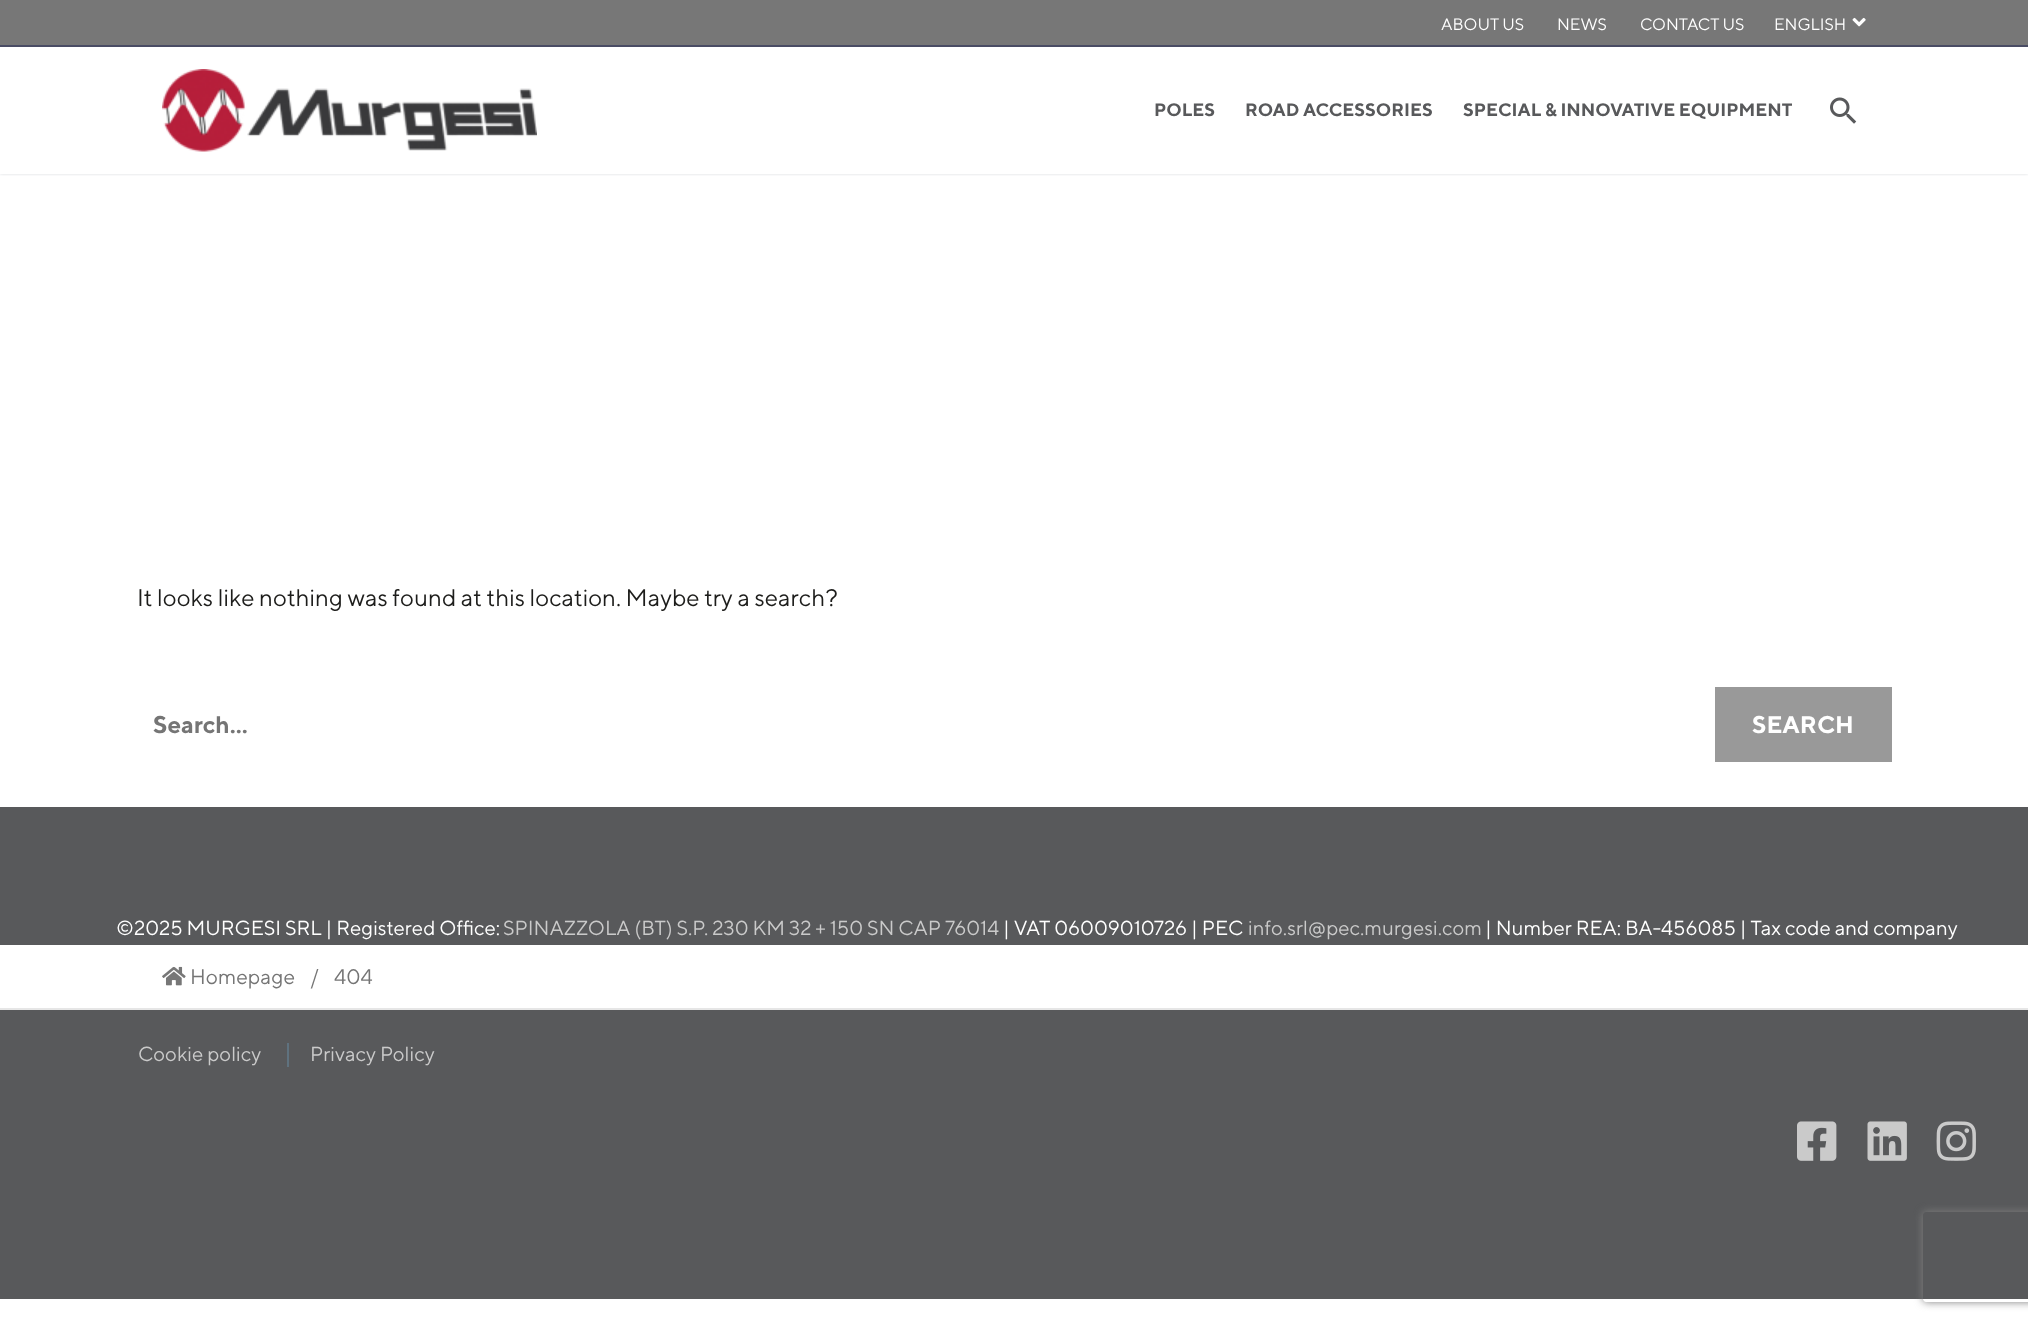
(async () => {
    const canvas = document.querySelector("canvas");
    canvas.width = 2028;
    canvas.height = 1322;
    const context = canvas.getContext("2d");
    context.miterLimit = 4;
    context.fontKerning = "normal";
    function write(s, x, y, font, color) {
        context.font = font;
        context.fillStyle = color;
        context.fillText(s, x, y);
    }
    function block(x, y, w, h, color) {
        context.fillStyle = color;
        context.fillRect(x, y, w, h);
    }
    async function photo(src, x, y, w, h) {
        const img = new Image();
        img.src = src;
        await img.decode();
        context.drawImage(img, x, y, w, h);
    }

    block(0, 0, 2028, 1322, "rgb(255, 255, 255)");
    context.save();
    context.beginPath();
    context.rect(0, 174, 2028, 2);
    context.clip();
    context.fillStyle = "rgba(56, 69, 84, 0.2)";
    context.filter = "blur(1.5px)";
    context.beginPath();
    context.rect(0, 0, 2028, 174);
    context.fill();
    context.filter = "none";
    context.restore();
    block(0, 0, 2028, 45, "rgb(119, 119, 119)");
    block(0, 45, 2028, 2, "rgb(73, 76, 100)");
    write("ABOUT US", 1441, 30, "16.5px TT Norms", "rgb(255, 255, 255)");
    write("NEWS", 1557, 30, "16.5px TT Norms", "rgb(255, 255, 255)");
    write("CONTACT US", 1640, 30, "16.5px TT Norms", "rgb(255, 255, 255)");
    write("ENGLISH", 1774, 30, "16.5px TT Norms", "rgb(255, 255, 255)");
    await photo("media/1.png", 1852, 17, 14, 10);
    await photo("media/2.png", 162, 69, 375, 83);
    write("POLES", 1154, 116, "bold 18px TT Norms", "rgb(88, 89, 91)");
    write("ROAD ACCESSORIES", 1245, 116, "bold 18px TT Norms", "rgb(88, 89, 91)");
    write("SPECIAL & INNOVATIVE EQUIPMENT", 1463, 116, "bold 18px TT Norms", "rgb(88, 89, 91)");
    await photo("media/3.png", 1830, 97, 27, 27);
    write("It looks like nothing was found at this location. Maybe try a search?", 137, 606, "24px TT Norms", "rgb(29, 29, 27)");
    write("Search...", 153, 733, "bold 24px TT Norms", "rgb(117, 117, 117)");
    block(1715, 687, 177, 75, "rgb(153, 153, 153)");
    write("SEARCH", 1752, 733, "bold 24px TT Norms", "rgb(255, 255, 255)");
    block(0, 807, 2028, 492, "rgb(88, 89, 91)");
    write("©2025 MURGESI SRL | Registered Office:", 116, 935, "20.4px TT Norms", "rgb(255, 255, 255)");
    write("SPINAZZOLA (BT) S.P. 230 KM 32 + 150 SN CAP 76014", 503, 935, "20.4px TT Norms", "rgb(202, 202, 202)");
    write("| VAT 06009010726 | PEC", 1003, 935, "20.4px TT Norms", "rgb(255, 255, 255)");
    write("info.srl@pec.murgesi.com", 1248, 935, "20.4px TT Norms", "rgb(202, 202, 202)");
    write("| Number REA: BA-456085 | Tax code and company", 1485, 935, "20.4px TT Norms", "rgb(255, 255, 255)");
    write("Cookie policy", 138, 1061, "20.4px TT Norms", "rgb(202, 202, 202)");
    block(287, 1043, 2, 24, "rgb(95, 114, 127)");
    write("Privacy Policy", 310, 1061, "20.4px TT Norms", "rgb(202, 202, 202)");
    await photo("media/4.png", 1797, 1121, 40, 40);
    await photo("media/5.png", 1867, 1121, 40, 40);
    await photo("media/6.png", 1936, 1121, 40, 40);
    block(0, 945, 2028, 63, "rgb(255, 255, 255)");
    block(0, 1008, 2028, 2, "rgb(230, 230, 230)");
    await photo("media/7.png", 162, 966, 24, 20);
    write("Homepage", 190, 984, "21px TT Norms", "rgb(117, 117, 117)");
    write("/", 310, 984, "21px TT Norms", "rgb(117, 117, 117)");
    write("404", 334, 984, "21px TT Norms", "rgb(117, 117, 117)");
    context.save();
    context.beginPath();
    context.moveTo(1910, 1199);
    context.lineTo(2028, 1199);
    context.lineTo(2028, 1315);
    context.lineTo(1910, 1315);
    context.closePath();
    context.moveTo(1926, 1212);
    context.lineTo(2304, 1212);
    context.bezierCurveTo(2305.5, 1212, 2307, 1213.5, 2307, 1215);
    context.lineTo(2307, 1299);
    context.bezierCurveTo(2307, 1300.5, 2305.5, 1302, 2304, 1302);
    context.lineTo(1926, 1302);
    context.bezierCurveTo(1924.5, 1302, 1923, 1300.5, 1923, 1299);
    context.lineTo(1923, 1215);
    context.bezierCurveTo(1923, 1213.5, 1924.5, 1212, 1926, 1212);
    context.closePath();
    context.clip("evenodd");
    context.fillStyle = "rgb(128, 128, 128)";
    context.filter = "blur(4px)";
    context.beginPath();
    context.roundRect(1923, 1212, 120, 90, 3);
    context.fill();
    context.filter = "none";
    context.restore();
})();
